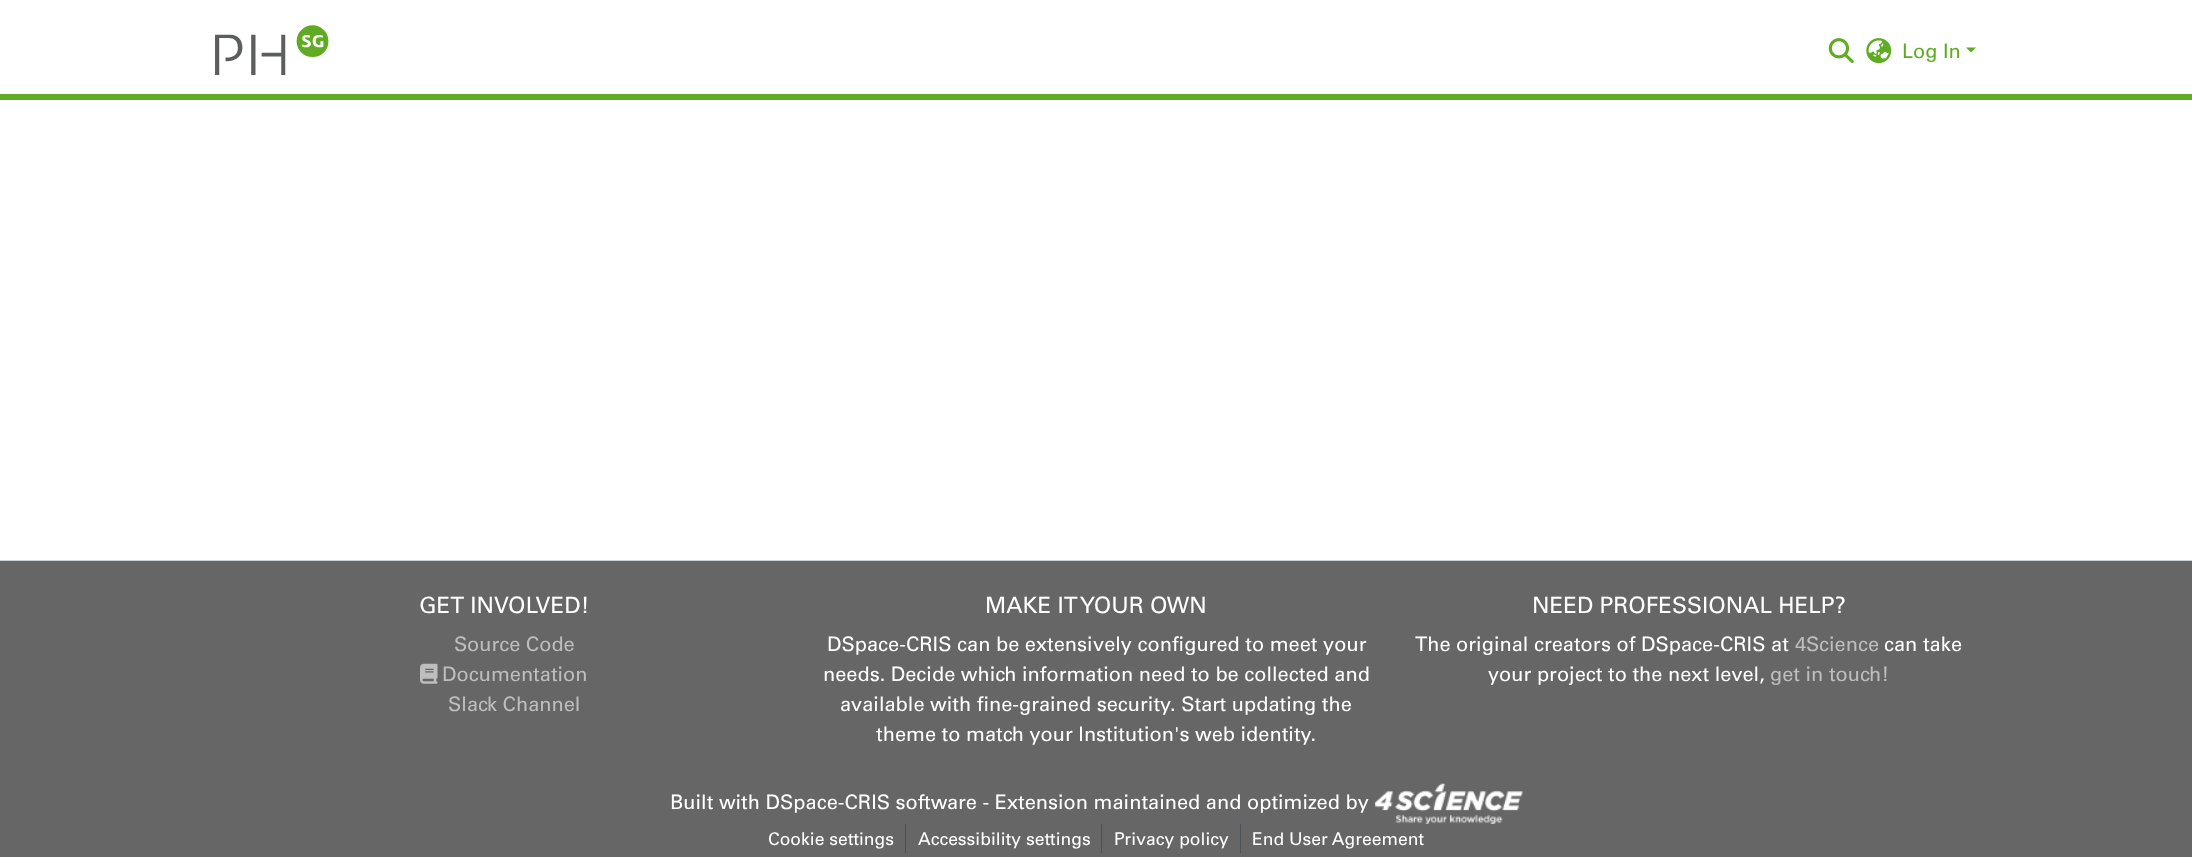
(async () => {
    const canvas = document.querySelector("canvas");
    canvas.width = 2192;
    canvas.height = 857;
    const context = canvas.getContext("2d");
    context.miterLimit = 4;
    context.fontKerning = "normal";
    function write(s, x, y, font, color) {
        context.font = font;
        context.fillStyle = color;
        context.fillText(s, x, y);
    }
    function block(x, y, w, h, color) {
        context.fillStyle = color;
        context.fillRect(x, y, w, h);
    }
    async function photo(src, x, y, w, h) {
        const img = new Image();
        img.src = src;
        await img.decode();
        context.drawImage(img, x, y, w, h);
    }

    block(0, 0, 2192, 857, "rgb(255, 255, 255)");
    block(0, 94, 2192, 6, "rgb(95, 172, 34)");
    await photo("media/1.png", 215, 25, 114, 50);
    await photo("media/2.png", 1828, 38, 26, 26);
    await photo("media/3.png", 1866, 38, 26, 26);
    write("Log In", 1902, 58, "20px 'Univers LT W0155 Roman'", "rgb(95, 172, 34)");
    context.beginPath();
    context.moveTo(1966, 47.5);
    context.lineTo(1976, 47.5);
    context.lineTo(1971, 52.5);
    context.closePath();
    context.fill();
    block(0, 561, 2192, 296, "rgb(102, 102, 102)");
    block(0, 560, 2192, 1, "rgb(206, 212, 218)");
    write("GET INVOLVED!", 419, 613, "22.5px 'Univers LT W0155 Roman'", "rgb(255, 255, 255)");
    write("Source Code", 454, 651, "20px 'Univers LT W0155 Roman'", "rgb(190, 190, 190)");
    await photo("media/4.png", 420, 663, 18, 21);
    write("Documentation", 442, 681, "20px 'Univers LT W0155 Roman'", "rgb(190, 190, 190)");
    write("Slack Channel", 448, 711, "20px 'Univers LT W0155 Roman'", "rgb(190, 190, 190)");
    write("MAKE IT YOUR OWN", 985, 613, "22.5px 'Univers LT W0155 Roman'", "rgb(255, 255, 255)");
    write("DSpace-CRIS can be extensively configured to meet your", 827, 651, "20px 'Univers LT W0155 Roman'", "rgb(255, 255, 255)");
    write("needs. Decide which information need to be collected and", 823, 681, "20px 'Univers LT W0155 Roman'", "rgb(255, 255, 255)");
    write("available with fine-grained security. Start updating the", 840, 711, "20px 'Univers LT W0155 Roman'", "rgb(255, 255, 255)");
    write("theme to match your Institution's web identity.", 876, 741, "20px 'Univers LT W0155 Roman'", "rgb(255, 255, 255)");
    write("NEED PROFESSIONAL HELP?", 1532, 613, "22.5px 'Univers LT W0155 Roman'", "rgb(255, 255, 255)");
    write("The original creators of DSpace-CRIS at", 1415, 651, "20px 'Univers LT W0155 Roman'", "rgb(255, 255, 255)");
    write("4Science", 1795, 651, "20px 'Univers LT W0155 Roman'", "rgb(190, 190, 190)");
    write("can take", 1884, 651, "20px 'Univers LT W0155 Roman'", "rgb(255, 255, 255)");
    write("your project to the next level,", 1488, 681, "20px 'Univers LT W0155 Roman'", "rgb(255, 255, 255)");
    write("get in touch!", 1770, 681, "20px 'Univers LT W0155 Roman'", "rgb(190, 190, 190)");
    write("Built with DSpace-CRIS software - Extension maintained and optimized by", 670, 809, "20px 'Univers LT W0155 Roman'", "rgb(255, 255, 255)");
    await photo("media/5.png", 1375, 783, 148, 41);
    write("Cookie settings", 768, 845, "17.5px 'Univers LT W0155 Roman'", "rgb(255, 255, 255)");
    block(905, 824, 1, 29, "rgb(73, 80, 87)");
    write("Accessibility settings", 918, 845, "17.5px 'Univers LT W0155 Roman'", "rgb(255, 255, 255)");
    block(1101, 824, 1, 29, "rgb(73, 80, 87)");
    write("Privacy policy", 1114, 845, "17.5px 'Univers LT W0155 Roman'", "rgb(255, 255, 255)");
    block(1240, 824, 1, 29, "rgb(73, 80, 87)");
    write("End User Agreement", 1252, 845, "17.5px 'Univers LT W0155 Roman'", "rgb(255, 255, 255)");
})();
